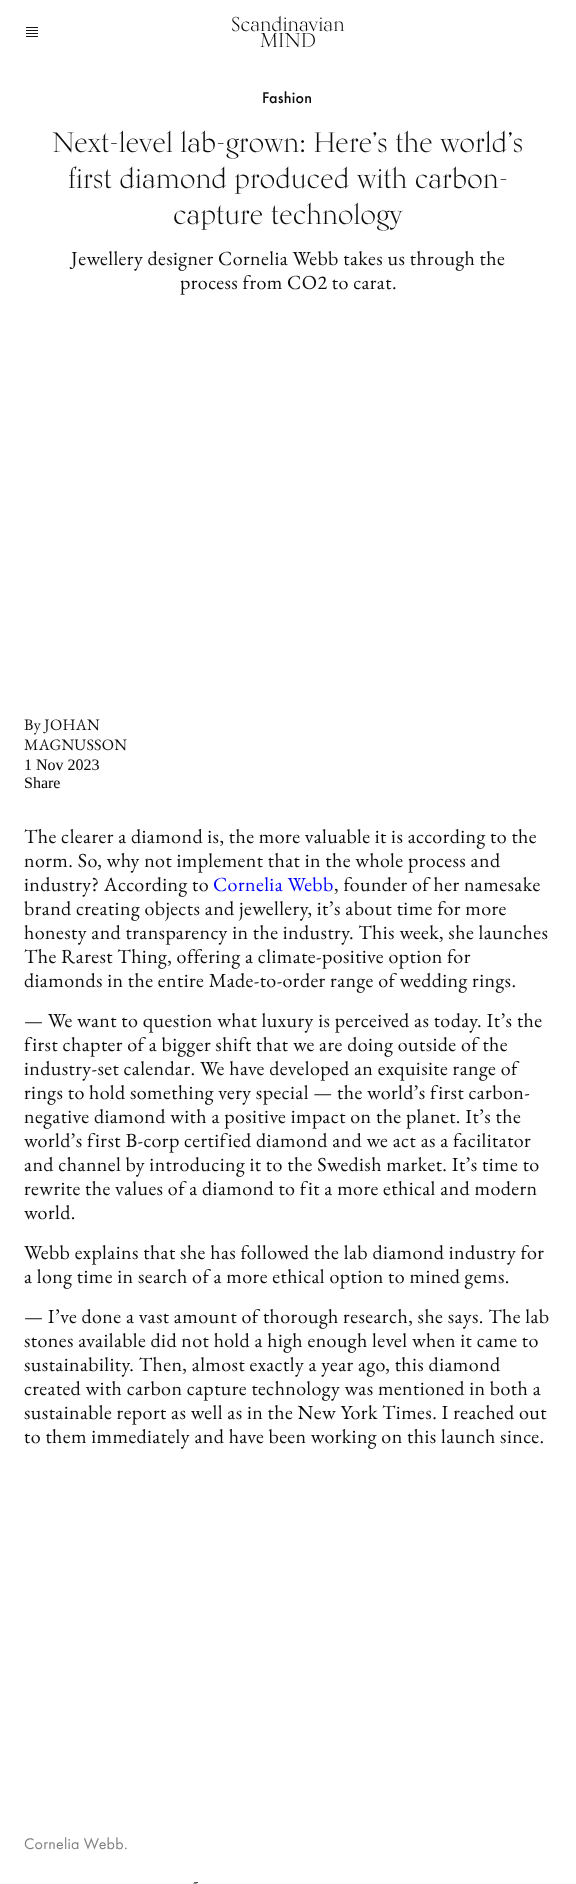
(async () => {
    const canvas = document.querySelector("canvas");
    canvas.width = 576;
    canvas.height = 1884;
    const context = canvas.getContext("2d");
    context.miterLimit = 4;
    context.fontKerning = "normal";
    function write(s, x, y, font, color) {
        context.font = font;
        context.fillStyle = color;
        context.fillText(s, x, y);
    }
    function block(x, y, w, h, color) {
        context.fillStyle = color;
        context.fillRect(x, y, w, h);
    }
    async function photo(src, x, y, w, h) {
        const img = new Image();
        img.src = src;
        await img.decode();
        context.drawImage(img, x, y, w, h);
    }

    block(0, 0, 576, 1884, "rgb(255, 255, 255)");
    await photo("media/1.png", 26, 27, 12, 10);
    write("Scandinavian", 231, 31, "20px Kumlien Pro", "rgb(0, 0, 0)");
    write("MIND", 260, 47, "20px Kumlien Pro", "rgb(0, 0, 0)");
    context.letterSpacing = "0.25px";
    write("Fashion", 262, 103, "500 16px Futura PT", "rgb(12, 12, 12)");
    context.letterSpacing = "0px";
    write("Next-level lab-grown: Here’s the world’s", 52, 152, "28px Kumlien Pro", "rgb(12, 12, 12)");
    write("first diamond produced with carbon-", 68, 188, "28px Kumlien Pro", "rgb(12, 12, 12)");
    write("capture technology", 173, 224, "28px Kumlien Pro", "rgb(12, 12, 12)");
    context.letterSpacing = "0.4px";
    write("Jewellery designer Cornelia Webb takes us through the", 71, 265, "20px EB Garamond", "rgb(12, 12, 12)");
    write("process from CO2 to carat.", 180, 289, "20px EB Garamond", "rgb(12, 12, 12)");
    context.letterSpacing = "0.25px";
    write("By JOHAN", 24, 730, "16px EB Garamond", "rgb(12, 12, 12)");
    write("MAGNUSSON", 24, 750, "16px EB Garamond", "rgb(12, 12, 12)");
    context.letterSpacing = "0px";
    write("1 Nov 2023", 24, 770, "16px Liberation Serif", "rgb(0, 0, 0)");
    write("Share", 24, 788, "16px Liberation Serif", "rgb(0, 0, 0)");
    context.letterSpacing = "0.4px";
    write("The clearer a diamond is, the more valuable it is according to the", 24, 843, "20px EB Garamond", "rgb(12, 12, 12)");
    write("norm. So, why not implement that in the whole process and", 24, 867, "20px EB Garamond", "rgb(12, 12, 12)");
    write("industry? According to", 24, 891, "20px EB Garamond", "rgb(12, 12, 12)");
    write("Cornelia Webb", 213, 891, "20px EB Garamond", "rgb(0, 0, 255)");
    write(", founder of her namesake", 334, 891, "20px EB Garamond", "rgb(12, 12, 12)");
    write("brand creating objects and jewellery, it’s about time for more", 24, 915, "20px EB Garamond", "rgb(12, 12, 12)");
    write("honesty and transparency in the industry. This week, she launches", 24, 939, "20px EB Garamond", "rgb(12, 12, 12)");
    write("The Rarest Thing, offering a climate-positive option for", 24, 963, "20px EB Garamond", "rgb(12, 12, 12)");
    write("diamonds in the entire Made-to-order range of wedding rings.", 24, 987, "20px EB Garamond", "rgb(12, 12, 12)");
    write("— We want to question what luxury is perceived as today. It’s the", 24, 1027, "20px EB Garamond", "rgb(12, 12, 12)");
    write("first chapter of a bigger shift that we are doing outside of the", 24, 1051, "20px EB Garamond", "rgb(12, 12, 12)");
    write("industry-set calendar. We have developed an exquisite range of", 24, 1075, "20px EB Garamond", "rgb(12, 12, 12)");
    write("rings to hold something very special — the world’s first carbon-", 24, 1099, "20px EB Garamond", "rgb(12, 12, 12)");
    write("negative diamond with a positive impact on the planet. It’s the", 24, 1123, "20px EB Garamond", "rgb(12, 12, 12)");
    write("world’s first B-corp certified diamond and we act as a facilitator", 24, 1147, "20px EB Garamond", "rgb(12, 12, 12)");
    write("and channel by introducing it to the Swedish market. It’s time to", 24, 1171, "20px EB Garamond", "rgb(12, 12, 12)");
    write("rewrite the values of a diamond to fit a more ethical and modern", 24, 1195, "20px EB Garamond", "rgb(12, 12, 12)");
    write("world.", 24, 1219, "20px EB Garamond", "rgb(12, 12, 12)");
    write("Webb explains that she has followed the lab diamond industry for", 24, 1259, "20px EB Garamond", "rgb(12, 12, 12)");
    write("a long time in search of a more ethical option to mined gems.", 24, 1283, "20px EB Garamond", "rgb(12, 12, 12)");
    write("— I’ve done a vast amount of thorough research, she says. The lab", 24, 1323, "20px EB Garamond", "rgb(12, 12, 12)");
    write("stones available did not hold a high enough level when it came to", 24, 1347, "20px EB Garamond", "rgb(12, 12, 12)");
    write("sustainability. Then, almost exactly a year ago, this diamond", 24, 1371, "20px EB Garamond", "rgb(12, 12, 12)");
    write("created with carbon capture technology was mentioned in both a", 24, 1395, "20px EB Garamond", "rgb(12, 12, 12)");
    write("sustainable report as well as in the New York Times. I reached out", 24, 1419, "20px EB Garamond", "rgb(12, 12, 12)");
    write("to them immediately and have been working on this launch since.", 24, 1443, "20px EB Garamond", "rgb(12, 12, 12)");
    context.letterSpacing = "0.25px";
    write("Cornelia Webb.", 24, 1849, "16px Futura PT", "rgb(128, 128, 128)");
    context.letterSpacing = "0.4px";
    write("-", 193, 1887, "20px EB Garamond", "rgb(12, 12, 12)");
})();
